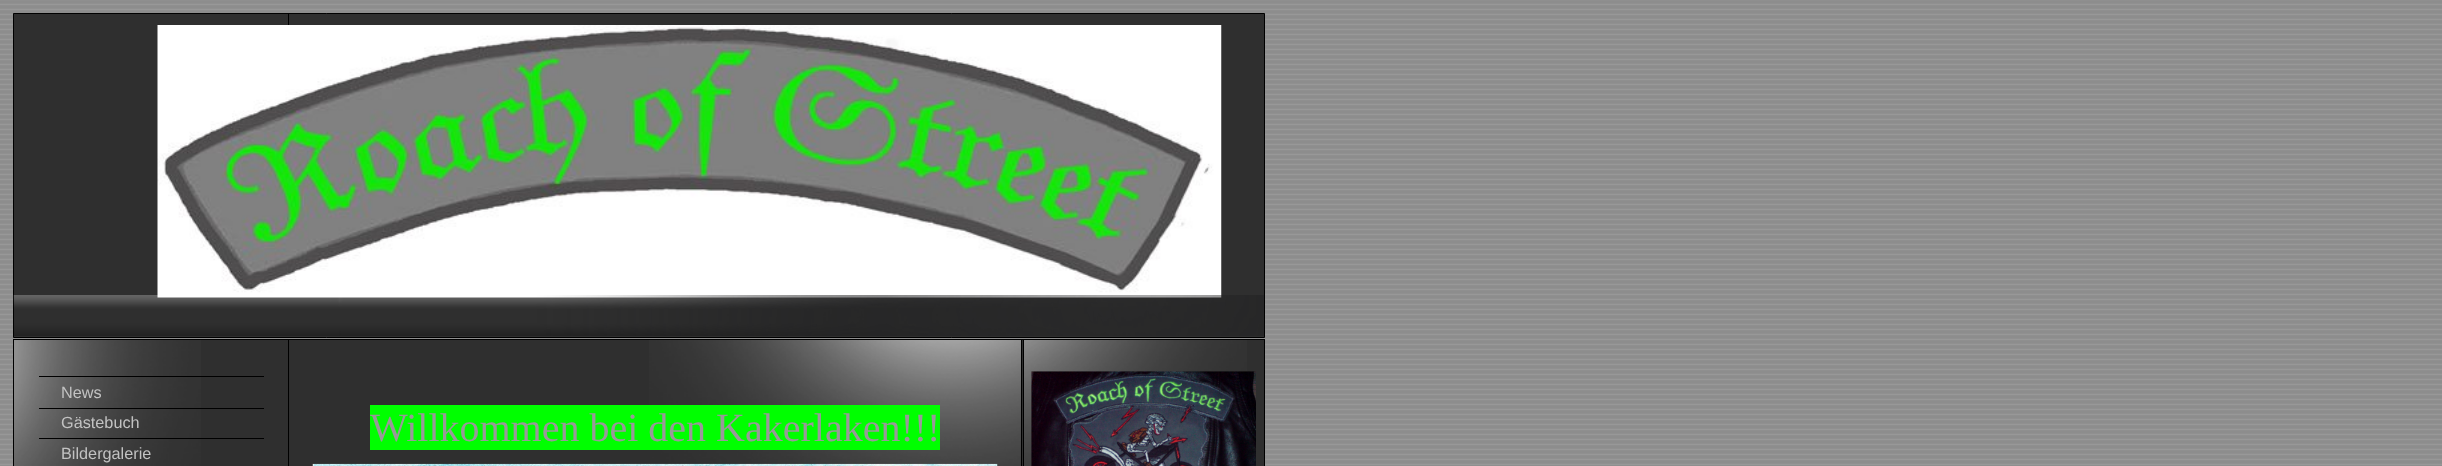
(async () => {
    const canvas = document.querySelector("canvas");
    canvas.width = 2442;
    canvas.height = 466;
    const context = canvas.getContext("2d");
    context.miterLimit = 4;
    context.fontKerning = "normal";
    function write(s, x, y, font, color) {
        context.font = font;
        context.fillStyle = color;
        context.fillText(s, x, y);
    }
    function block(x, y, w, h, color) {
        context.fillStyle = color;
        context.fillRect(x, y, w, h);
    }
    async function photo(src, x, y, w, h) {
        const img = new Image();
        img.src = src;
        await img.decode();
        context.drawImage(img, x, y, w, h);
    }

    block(0, 0, 2442, 466, "rgb(153, 153, 153)");
    await photo("media/1.png", 0, 0, 2442, 466);
    context.fillStyle = "rgb(47, 47, 47)";
    context.beginPath();
    context.rect(13.5, 13.5, 1251, 324);
    context.fill();
    context.strokeStyle = "rgb(0, 0, 0)";
    context.stroke();
    block(288, 14, 1, 11, "rgb(0, 0, 0)");
    await photo("media/2.png", 157, 25, 1065, 273);
    await photo("media/3.png", 13, 295, 1251, 41);
    block(14, 340, 274, 126, "rgb(47, 47, 47)");
    await photo("media/4.png", 14, 340, 187, 126);
    block(13, 339, 1010, 1, "rgb(0, 0, 0)");
    block(13, 339, 1, 127, "rgb(0, 0, 0)");
    block(288, 340, 1, 126, "rgb(0, 0, 0)");
    block(39, 376, 225, 1, "rgb(0, 0, 0)");
    write("News", 61, 398, "16.25px Liberation Sans", "rgb(194, 194, 194)");
    block(39, 408, 225, 1, "rgb(0, 0, 0)");
    write("Gästebuch", 61, 428, "16.25px Liberation Sans", "rgb(194, 194, 194)");
    block(39, 438, 225, 1, "rgb(0, 0, 0)");
    write("Bildergalerie", 61, 459, "16.25px Liberation Sans", "rgb(194, 194, 194)");
    block(289, 340, 734, 126, "rgb(47, 47, 47)");
    await photo("media/5.png", 649, 340, 372, 126);
    block(1021, 339, 1, 127, "rgb(0, 0, 0)");
    block(370, 405, 570, 45, "rgb(0, 255, 0)");
    write("Willkommen bei den Kakerlaken!!!", 370, 441, "40px Liberation Serif", "rgb(153, 153, 153)");
    await photo("media/6.png", 312, 463, 686, 3);
    block(1024, 340, 240, 126, "rgb(47, 47, 47)");
    await photo("media/7.png", 1024, 340, 223, 126);
    context.strokeRect(1023.5, 339.5, 241, 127);
    await photo("media/8.png", 1031, 371, 225, 95);
})();
